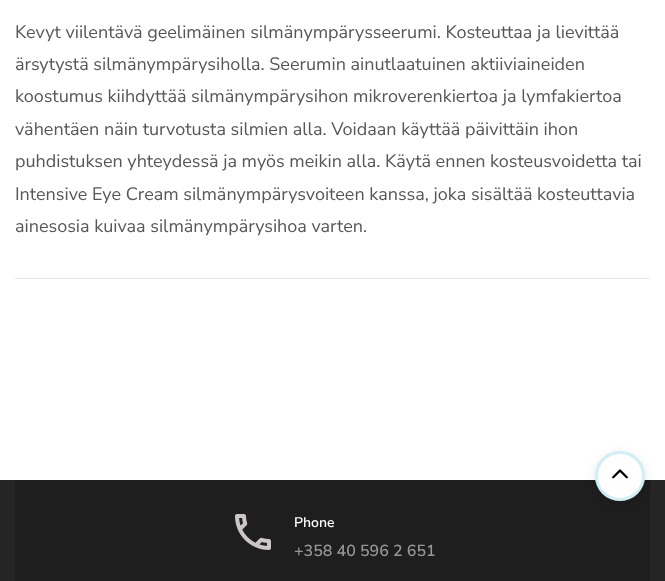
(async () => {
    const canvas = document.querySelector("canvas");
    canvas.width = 665;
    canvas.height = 581;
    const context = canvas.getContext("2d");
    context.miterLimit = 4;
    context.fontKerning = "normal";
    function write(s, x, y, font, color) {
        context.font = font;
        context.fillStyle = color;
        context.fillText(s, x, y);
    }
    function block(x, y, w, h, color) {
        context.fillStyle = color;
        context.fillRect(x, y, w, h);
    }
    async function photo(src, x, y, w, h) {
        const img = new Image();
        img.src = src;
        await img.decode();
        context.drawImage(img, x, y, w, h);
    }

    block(0, 0, 665, 581, "rgb(255, 255, 255)");
    write("Kevyt viilentävä geelimäinen silmänympärysseerumi. Kosteuttaa ja lievittää", 15, 38, "18px Nunito Sans", "rgb(88, 86, 86)");
    write("ärsytystä silmänympärysiholla. Seerumin ainutlaatuinen aktiiviaineiden", 15, 70, "18px Nunito Sans", "rgb(88, 86, 86)");
    write("koostumus kiihdyttää silmänympärysihon mikroverenkiertoa ja lymfakiertoa", 15, 102, "18px Nunito Sans", "rgb(88, 86, 86)");
    write("vähentäen näin turvotusta silmien alla. Voidaan käyttää päivittäin ihon", 15, 135, "18px Nunito Sans", "rgb(88, 86, 86)");
    write("puhdistuksen yhteydessä ja myös meikin alla. Käytä ennen kosteusvoidetta tai", 15, 167, "18px Nunito Sans", "rgb(88, 86, 86)");
    write("Intensive Eye Cream silmänympärysvoiteen kanssa, joka sisältää kosteuttavia", 15, 200, "18px Nunito Sans", "rgb(88, 86, 86)");
    write("ainesosia kuivaa silmänympärysihoa varten.", 15, 232, "18px Nunito Sans", "rgb(88, 86, 86)");
    block(15, 278, 635, 1, "rgb(230, 230, 230)");
    block(0, 480, 665, 101, "rgb(38, 37, 37)");
    block(15, 480, 635, 101, "rgb(30, 30, 30)");
    context.fillStyle = "rgba(0, 0, 0, 0.1)";
    context.filter = "blur(5px)";
    context.beginPath();
    context.roundRect(595, 453, 50, 50, 25);
    context.fill();
    context.filter = "none";
    context.fillStyle = "rgb(255, 255, 255)";
    context.beginPath();
    context.arc(620, 476, 25, 0, Math.PI * 2);
    context.fill();
    context.beginPath();
    context.arc(620, 476, 23.5, 0, Math.PI * 2);
    context.strokeStyle = "rgba(159, 221, 242, 0.5)";
    context.lineWidth = 3;
    context.stroke();
    await photo("media/1.png", 612, 469, 16, 10);
    await photo("media/2.png", 235, 514, 36, 36);
    write("Phone", 294, 527, "600 14px Nunito Sans", "rgb(255, 255, 255)");
    write("+358 40 596 2 651", 294, 556, "600 16px Nunito Sans", "rgb(153, 149, 150)");
})();
